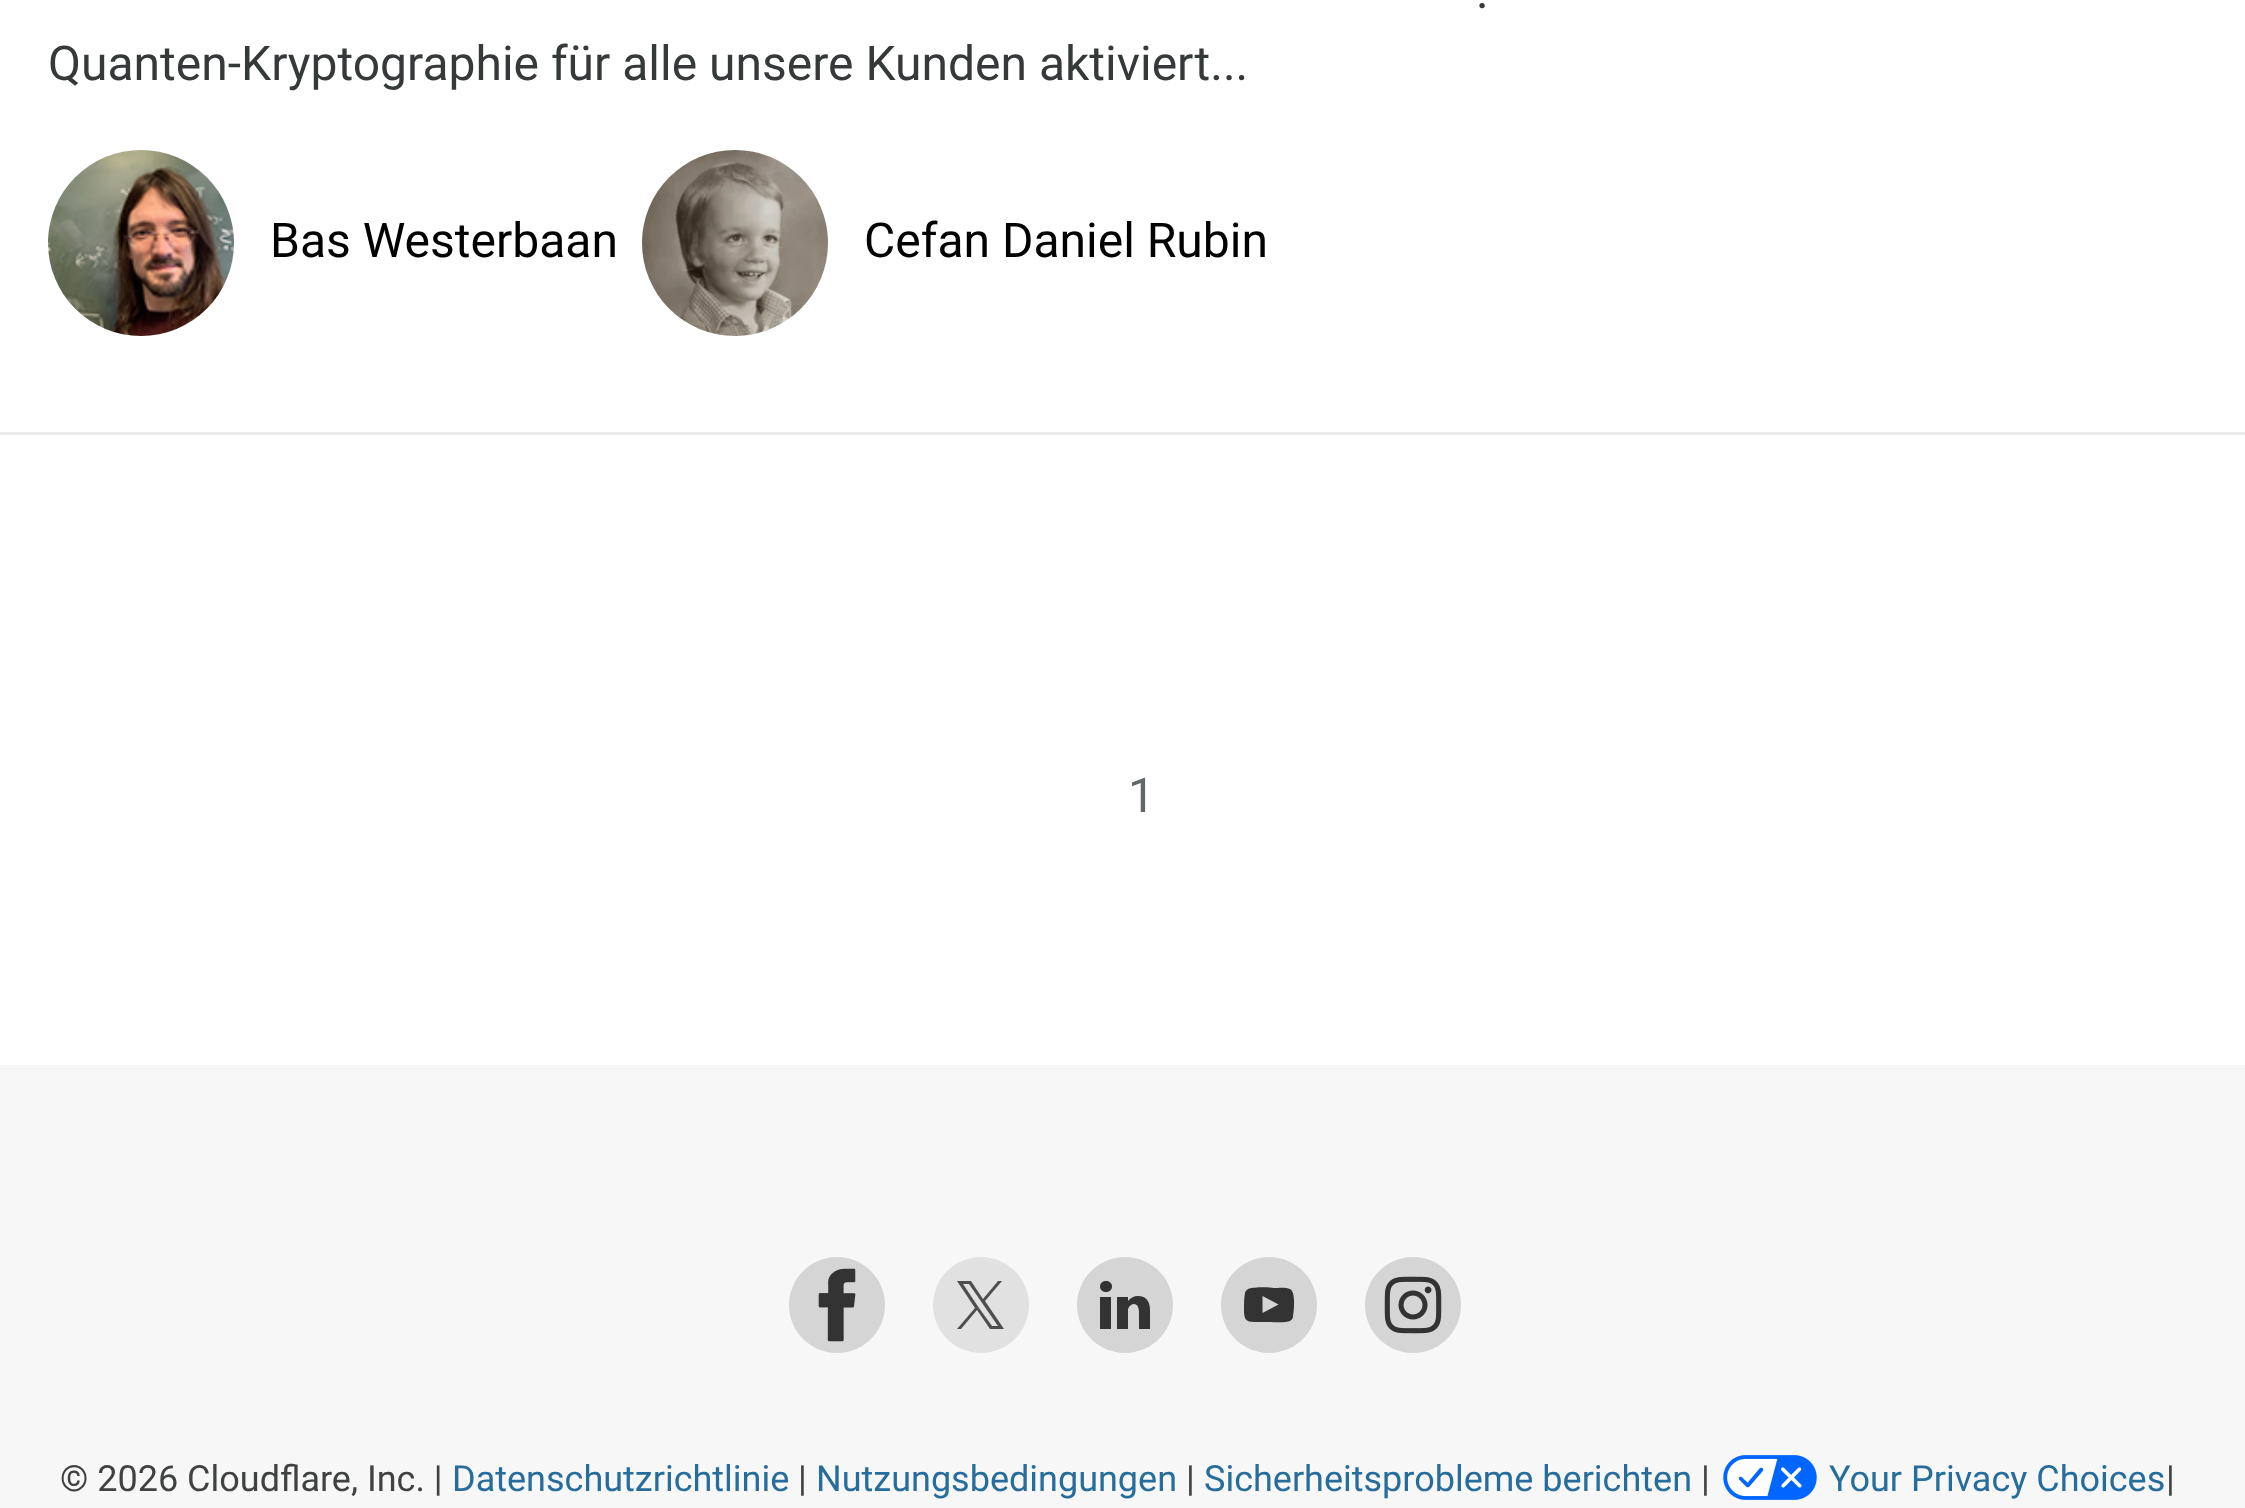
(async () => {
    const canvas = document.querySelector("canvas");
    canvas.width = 2245;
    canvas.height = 1508;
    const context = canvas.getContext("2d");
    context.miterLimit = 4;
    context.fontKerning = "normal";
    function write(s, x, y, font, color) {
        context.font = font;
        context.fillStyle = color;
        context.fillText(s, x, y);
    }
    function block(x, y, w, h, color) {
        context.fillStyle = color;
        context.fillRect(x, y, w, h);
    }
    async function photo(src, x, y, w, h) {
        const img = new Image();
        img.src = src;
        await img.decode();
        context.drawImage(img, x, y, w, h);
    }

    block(0, 0, 2245, 1508, "rgb(255, 255, 255)");
    block(0, 432, 2245, 3, "rgb(234, 235, 235)");
    write(".", 1476, 8, "48px Roboto", "rgb(54, 57, 58)");
    write("Quanten-Kryptographie für alle unsere Kunden aktiviert...", 48, 80, "48px Roboto", "rgb(54, 57, 58)");
    await photo("media/1.png", 48, 150, 186, 186);
    write("Bas Westerbaan", 270, 257, "48px Roboto", "rgb(0, 0, 0)");
    await photo("media/2.png", 642, 150, 186, 186);
    write("Cefan Daniel Rubin", 864, 257, "48px Roboto", "rgb(0, 0, 0)");
    write("1", 1128, 812, "48px Roboto", "rgb(98, 103, 106)");
    block(0, 1065, 2245, 443, "rgb(247, 247, 248)");
    await photo("media/3.png", 789, 1257, 96, 96);
    context.fillStyle = "rgb(225, 225, 225)";
    context.beginPath();
    context.arc(981, 1305, 48, 0, Math.PI * 2);
    context.fill();
    context.fillStyle = "rgb(78, 78, 78)";
    context.beginPath();
    context.moveTo(985, 1301);
    context.lineTo(1002, 1281);
    context.lineTo(998, 1281);
    context.lineTo(983, 1299);
    context.lineTo(971, 1281);
    context.lineTo(957, 1281);
    context.lineTo(975, 1308);
    context.lineTo(957, 1329);
    context.lineTo(961, 1329);
    context.lineTo(977, 1310);
    context.lineTo(990, 1329);
    context.lineTo(1004, 1329);
    context.closePath();
    context.moveTo(979, 1308);
    context.lineTo(963, 1284);
    context.lineTo(969, 1284);
    context.lineTo(998, 1326);
    context.lineTo(992, 1326);
    context.closePath();
    context.fill();
    context.fillStyle = "rgb(213, 213, 213)";
    context.beginPath();
    context.arc(1125, 1305, 48, 0, Math.PI * 2);
    context.fill();
    context.fillStyle = "rgb(51, 51, 51)";
    context.beginPath();
    context.moveTo(1111, 1329);
    context.lineTo(1100, 1329);
    context.lineTo(1100, 1297);
    context.lineTo(1111, 1297);
    context.closePath();
    context.moveTo(1106, 1292);
    context.bezierCurveTo(1098, 1292, 1098, 1281, 1106, 1281);
    context.bezierCurveTo(1114, 1281, 1114, 1292, 1106, 1292);
    context.closePath();
    context.moveTo(1150, 1329);
    context.lineTo(1139, 1329);
    context.lineTo(1139, 1318);
    context.bezierCurveTo(1139, 1313, 1140, 1303, 1133, 1304);
    context.bezierCurveTo(1131, 1305, 1129, 1306, 1128, 1309);
    context.lineTo(1128, 1329);
    context.lineTo(1117, 1329);
    context.lineTo(1117, 1297);
    context.lineTo(1128, 1297);
    context.lineTo(1128, 1301);
    context.bezierCurveTo(1130, 1298, 1134, 1296, 1138, 1296);
    context.bezierCurveTo(1145, 1296, 1150, 1300, 1150, 1310);
    context.closePath();
    context.fill();
    context.fillStyle = "rgb(213, 213, 213)";
    context.beginPath();
    context.arc(1269, 1305, 48, 0, Math.PI * 2);
    context.fill();
    context.fillStyle = "rgb(51, 51, 51)";
    context.beginPath();
    context.moveTo(1293, 1317);
    context.bezierCurveTo(1293, 1319, 1291, 1320, 1290, 1321);
    context.bezierCurveTo(1286, 1323, 1274, 1322, 1269, 1322);
    context.lineTo(1255, 1322);
    context.bezierCurveTo(1245, 1322, 1244, 1319, 1244, 1309);
    context.bezierCurveTo(1244, 1304, 1244, 1298, 1245, 1293);
    context.bezierCurveTo(1245, 1291, 1247, 1290, 1248, 1289);
    context.bezierCurveTo(1253, 1287, 1268, 1287, 1274, 1288);
    context.bezierCurveTo(1278, 1288, 1286, 1287, 1290, 1289);
    context.bezierCurveTo(1296, 1292, 1294, 1311, 1293, 1317);
    context.closePath();
    context.fill();
    context.fillStyle = "rgb(213, 213, 213)";
    context.beginPath();
    context.moveTo(1262.5, 1313);
    context.lineTo(1278.5, 1304.5);
    context.lineTo(1262.5, 1296);
    context.closePath();
    context.fill();
    await photo("media/4.png", 1365, 1257, 96, 96);
    write("© 2026 Cloudflare, Inc. |", 60, 1491, "36px Roboto", "rgb(64, 66, 66)");
    write("Datenschutzrichtlinie", 452, 1491, "36px Roboto", "rgb(39, 109, 155)");
    write("|", 798, 1491, "36px Roboto", "rgb(64, 66, 66)");
    write("Nutzungsbedingungen", 816, 1491, "36px Roboto", "rgb(39, 109, 155)");
    write("|", 1186, 1491, "36px Roboto", "rgb(64, 66, 66)");
    write("Sicherheitsprobleme berichten", 1204, 1491, "36px Roboto", "rgb(39, 109, 155)");
    write("|", 1701, 1491, "36px Roboto", "rgb(64, 66, 66)");
    await photo("media/5.png", 1723, 1455, 94, 45);
    write("Your Privacy Choices", 1829, 1491, "36px Roboto", "rgb(39, 109, 155)");
    write("|", 2166, 1491, "36px Roboto", "rgb(64, 66, 66)");
})();
